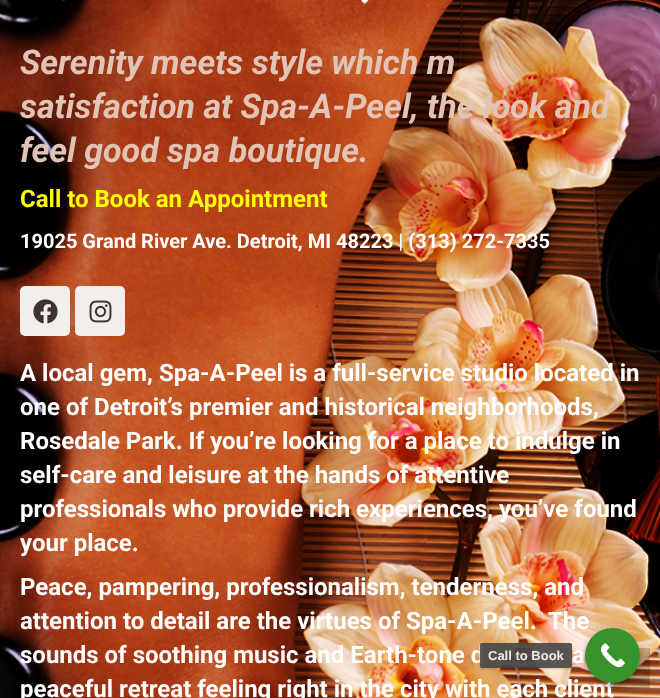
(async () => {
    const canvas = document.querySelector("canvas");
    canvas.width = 660;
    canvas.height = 698;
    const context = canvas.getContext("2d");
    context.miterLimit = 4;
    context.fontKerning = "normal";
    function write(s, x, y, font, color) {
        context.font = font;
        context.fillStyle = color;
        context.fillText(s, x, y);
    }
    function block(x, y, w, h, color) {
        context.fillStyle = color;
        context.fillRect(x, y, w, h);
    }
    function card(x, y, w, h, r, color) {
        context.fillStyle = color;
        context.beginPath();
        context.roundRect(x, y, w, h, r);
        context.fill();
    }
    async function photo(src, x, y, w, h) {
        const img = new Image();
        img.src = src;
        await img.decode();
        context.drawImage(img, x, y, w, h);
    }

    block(0, 0, 660, 698, "rgb(255, 255, 255)");
    await photo("media/1.png", 0, 0, 660, 698);
    await photo("media/2.png", 62, 0, 307, 5);
    write("Serenity meets style which m", 20, 74, "italic bold 34px Roboto", "rgb(225, 196, 182)");
    write("satisfaction at Spa-A-Peel, the look and", 20, 118, "italic bold 34px Roboto", "rgb(225, 196, 182)");
    write("feel good spa boutique.", 20, 162, "italic bold 34px Roboto", "rgb(225, 196, 182)");
    write("Call to Book an Appointment", 20, 207, "bold 24px Roboto", "rgb(255, 255, 0)");
    write("19025 Grand River Ave. Detroit, MI 48223 | (313) 272-7335", 20, 248, "bold 20px Roboto", "rgb(255, 255, 255)");
    card(20, 286, 50, 50, 5, "rgb(242, 239, 234)");
    await photo("media/3.png", 33, 299, 25, 25);
    card(75, 286, 50, 50, 5, "rgb(242, 239, 234)");
    await photo("media/4.png", 89, 300, 23, 23);
    write("A local gem, Spa-A-Peel is a full-service studio located in", 20, 381, "bold 24px Roboto", "rgb(255, 255, 255)");
    write("one of Detroit’s premier and historical neighborhoods,", 20, 415, "bold 24px Roboto", "rgb(255, 255, 255)");
    write("Rosedale Park. If you’re looking for a place to indulge in", 20, 449, "bold 24px Roboto", "rgb(255, 255, 255)");
    write("self-care and leisure at the hands of attentive", 20, 483, "bold 24px Roboto", "rgb(255, 255, 255)");
    write("professionals who provide rich experiences, you’ve found", 20, 517, "bold 24px Roboto", "rgb(255, 255, 255)");
    write("your place.", 20, 551, "bold 24px Roboto", "rgb(255, 255, 255)");
    write("Peace, pampering, professionalism, tenderness, and", 20, 595, "bold 24px Roboto", "rgb(255, 255, 255)");
    write("attention to detail are the virtues of Spa-A-Peel.", 20, 629, "bold 24px Roboto", "rgb(255, 255, 255)");
    write("The", 548, 629, "bold 24px Roboto", "rgb(255, 255, 255)");
    write("sounds of soothing music and Earth-tone d", 20, 663, "bold 24px Roboto", "rgb(255, 255, 255)");
    write("a", 572, 663, "bold 24px Roboto", "rgb(255, 255, 255)");
    write("peaceful retreat feeling right in the city with each client", 20, 697, "bold 24px Roboto", "rgb(255, 255, 255)");
    block(610, 648, 40, 40, "rgba(0, 0, 0, 0.2)");
    await photo("media/5.png", 630, 674, 2, 2);
    context.fillStyle = "rgba(0, 0, 0, 0.3)";
    context.filter = "blur(3px)";
    context.beginPath();
    context.roundRect(585, 631, 55, 55, 27.5);
    context.fill();
    context.filter = "none";
    context.fillStyle = "rgb(57, 147, 45)";
    context.beginPath();
    context.arc(612.5, 655.5, 27.5, 0, Math.PI * 2);
    context.fill();
    await photo("media/6.png", 600, 643, 25, 25);
    context.save();
    context.beginPath();
    context.moveTo(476, 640);
    context.lineTo(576, 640);
    context.lineTo(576, 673);
    context.lineTo(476, 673);
    context.closePath();
    context.moveTo(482, 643);
    context.lineTo(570, 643);
    context.bezierCurveTo(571, 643, 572, 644, 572, 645);
    context.lineTo(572, 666);
    context.bezierCurveTo(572, 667, 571, 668, 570, 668);
    context.lineTo(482, 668);
    context.bezierCurveTo(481, 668, 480, 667, 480, 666);
    context.lineTo(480, 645);
    context.bezierCurveTo(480, 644, 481, 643, 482, 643);
    context.closePath();
    context.clip("evenodd");
    context.fillStyle = "rgba(0, 0, 0, 0.15)";
    context.filter = "blur(1px)";
    context.beginPath();
    context.roundRect(480, 644, 92, 25, 2);
    context.fill();
    context.filter = "none";
    context.restore();
    card(480, 643, 92, 25, 2, "rgba(70, 70, 70, 0.9)");
    write("Call to Book", 488, 660, "bold 13px Liberation Sans", "rgb(236, 236, 236)");
})();
